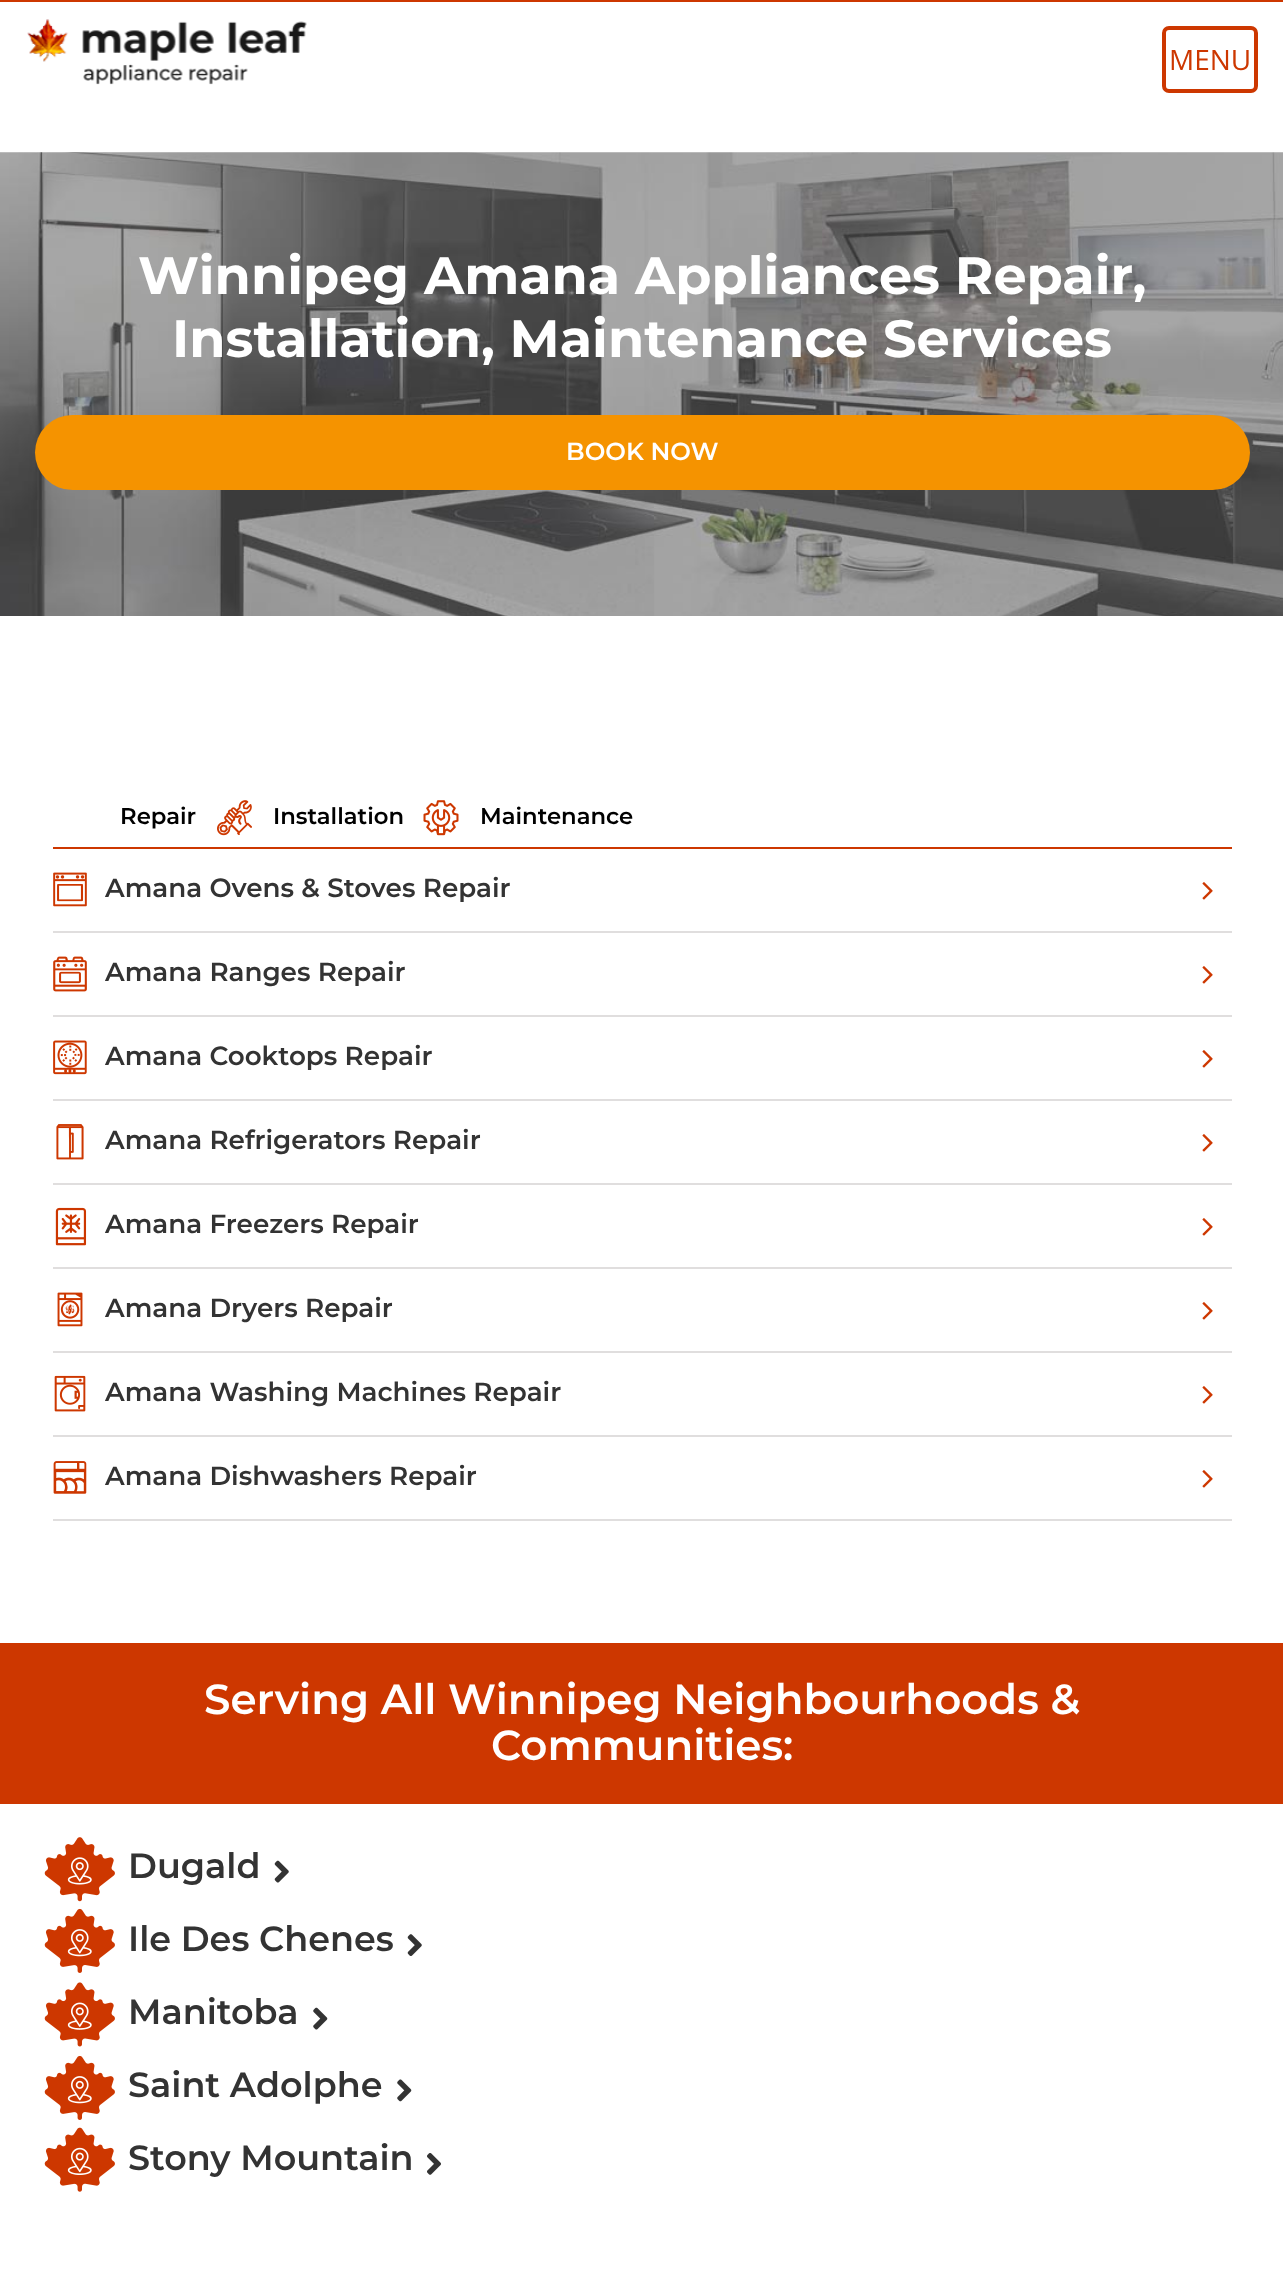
(async () => {
    const canvas = document.querySelector("canvas");
    canvas.width = 1283;
    canvas.height = 2271;
    const context = canvas.getContext("2d");
    context.miterLimit = 4;
    context.fontKerning = "normal";
    function write(s, x, y, font, color) {
        context.font = font;
        context.fillStyle = color;
        context.fillText(s, x, y);
    }
    function block(x, y, w, h, color) {
        context.fillStyle = color;
        context.fillRect(x, y, w, h);
    }
    function card(x, y, w, h, r, color) {
        context.fillStyle = color;
        context.beginPath();
        context.roundRect(x, y, w, h, r);
        context.fill();
    }
    async function photo(src, x, y, w, h) {
        const img = new Image();
        img.src = src;
        await img.decode();
        context.drawImage(img, x, y, w, h);
    }

    block(0, 0, 1283, 2271, "rgb(255, 255, 255)");
    block(0, 0, 1283, 2, "rgb(205, 55, 0)");
    await photo("media/1.png", 27, 19, 280, 66);
    context.beginPath();
    context.roundRect(1164, 28, 92, 63, 5);
    context.strokeStyle = "rgb(205, 55, 0)";
    context.lineWidth = 4;
    context.stroke();
    write("MENU", 1169, 70, "28px Open Sans", "rgb(205, 55, 0)");
    await photo("media/2.png", 0, 152, 1283, 464);
    write("Winnipeg Amana Appliances Repair,", 138, 294, "bold 52.5px Montserrat", "rgb(255, 255, 255)");
    write("Installation, Maintenance Services", 172, 357, "bold 52.5px Montserrat", "rgb(255, 255, 255)");
    card(35, 415, 1215, 75, 37.5, "rgb(245, 147, 0)");
    write("BOOK NOW", 566, 460, "600 24.5px Montserrat", "rgb(255, 255, 255)");
    block(53, 847, 1179, 2, "rgb(205, 55, 0)");
    write("Repair", 120, 824, "600 22.75px Montserrat", "rgb(0, 0, 0)");
    await photo("media/3.png", 217, 800, 35, 36);
    write("Installation", 273, 824, "600 22.75px Montserrat", "rgb(0, 0, 0)");
    await photo("media/4.png", 423, 800, 36, 36);
    write("Maintenance", 480, 824, "600 22.75px Montserrat", "rgb(0, 0, 0)");
    block(53, 931, 1179, 2, "rgb(224, 222, 222)");
    await photo("media/5.png", 53, 872, 34, 35);
    write("Amana Ovens & Stoves Repair", 105, 897, "600 26.25px Montserrat", "rgb(51, 51, 51)");
    await photo("media/6.png", 1202, 882, 11, 18);
    block(53, 1015, 1179, 2, "rgb(224, 222, 222)");
    await photo("media/7.png", 53, 956, 34, 36);
    write("Amana Ranges Repair", 105, 981, "600 26.25px Montserrat", "rgb(51, 51, 51)");
    await photo("media/6.png", 1202, 966, 11, 18);
    block(53, 1099, 1179, 2, "rgb(224, 222, 222)");
    await photo("media/8.png", 53, 1040, 34, 35);
    write("Amana Cooktops Repair", 105, 1065, "600 26.25px Montserrat", "rgb(51, 51, 51)");
    await photo("media/6.png", 1202, 1050, 11, 18);
    block(53, 1183, 1179, 2, "rgb(224, 222, 222)");
    await photo("media/9.png", 56, 1124, 28, 36);
    write("Amana Refrigerators Repair", 105, 1149, "600 26.25px Montserrat", "rgb(51, 51, 51)");
    await photo("media/6.png", 1202, 1134, 11, 18);
    block(53, 1267, 1179, 2, "rgb(224, 222, 222)");
    await photo("media/10.png", 55, 1207, 32, 39);
    write("Amana Freezers Repair", 105, 1233, "600 26.25px Montserrat", "rgb(51, 51, 51)");
    await photo("media/6.png", 1202, 1218, 11, 18);
    block(53, 1351, 1179, 2, "rgb(224, 222, 222)");
    await photo("media/11.png", 57, 1292, 26, 35);
    write("Amana Dryers Repair", 105, 1317, "600 26.25px Montserrat", "rgb(51, 51, 51)");
    await photo("media/6.png", 1202, 1302, 11, 18);
    block(53, 1435, 1179, 2, "rgb(224, 222, 222)");
    await photo("media/12.png", 54, 1375, 32, 37);
    write("Amana Washing Machines Repair", 105, 1401, "600 26.25px Montserrat", "rgb(51, 51, 51)");
    await photo("media/6.png", 1202, 1386, 11, 18);
    block(53, 1519, 1179, 2, "rgb(224, 222, 222)");
    await photo("media/13.png", 53, 1461, 34, 33);
    write("Amana Dishwashers Repair", 105, 1485, "600 26.25px Montserrat", "rgb(51, 51, 51)");
    await photo("media/6.png", 1202, 1470, 11, 18);
    block(0, 1643, 1283, 161, "rgb(205, 55, 0)");
    write("Serving All Winnipeg Neighbourhoods &", 204, 1714, "600 42px Montserrat", "rgb(255, 255, 255)");
    write("Communities:", 491, 1760, "600 42px Montserrat", "rgb(255, 255, 255)");
    await photo("media/14.png", 44, 1837, 71, 65);
    write("Dugald", 128, 1878, "600 35px Montserrat", "rgb(51, 51, 51)");
    await photo("media/15.png", 274, 1860, 15, 23);
    await photo("media/16.png", 44, 1908, 71, 65);
    write("Ile Des Chenes", 128, 1951, "600 35px Montserrat", "rgb(51, 51, 51)");
    await photo("media/17.png", 407, 1934, 15, 22);
    await photo("media/18.png", 44, 1982, 71, 65);
    write("Manitoba", 128, 2024, "600 35px Montserrat", "rgb(51, 51, 51)");
    await photo("media/19.png", 313, 2007, 15, 23);
    await photo("media/16.png", 44, 2055, 71, 65);
    write("Saint Adolphe", 128, 2097, "600 35px Montserrat", "rgb(51, 51, 51)");
    await photo("media/20.png", 397, 2079, 15, 23);
    await photo("media/21.png", 44, 2127, 71, 65);
    write("Stony Mountain", 128, 2170, "600 35px Montserrat", "rgb(51, 51, 51)");
    await photo("media/22.png", 427, 2153, 14, 22);
})();
